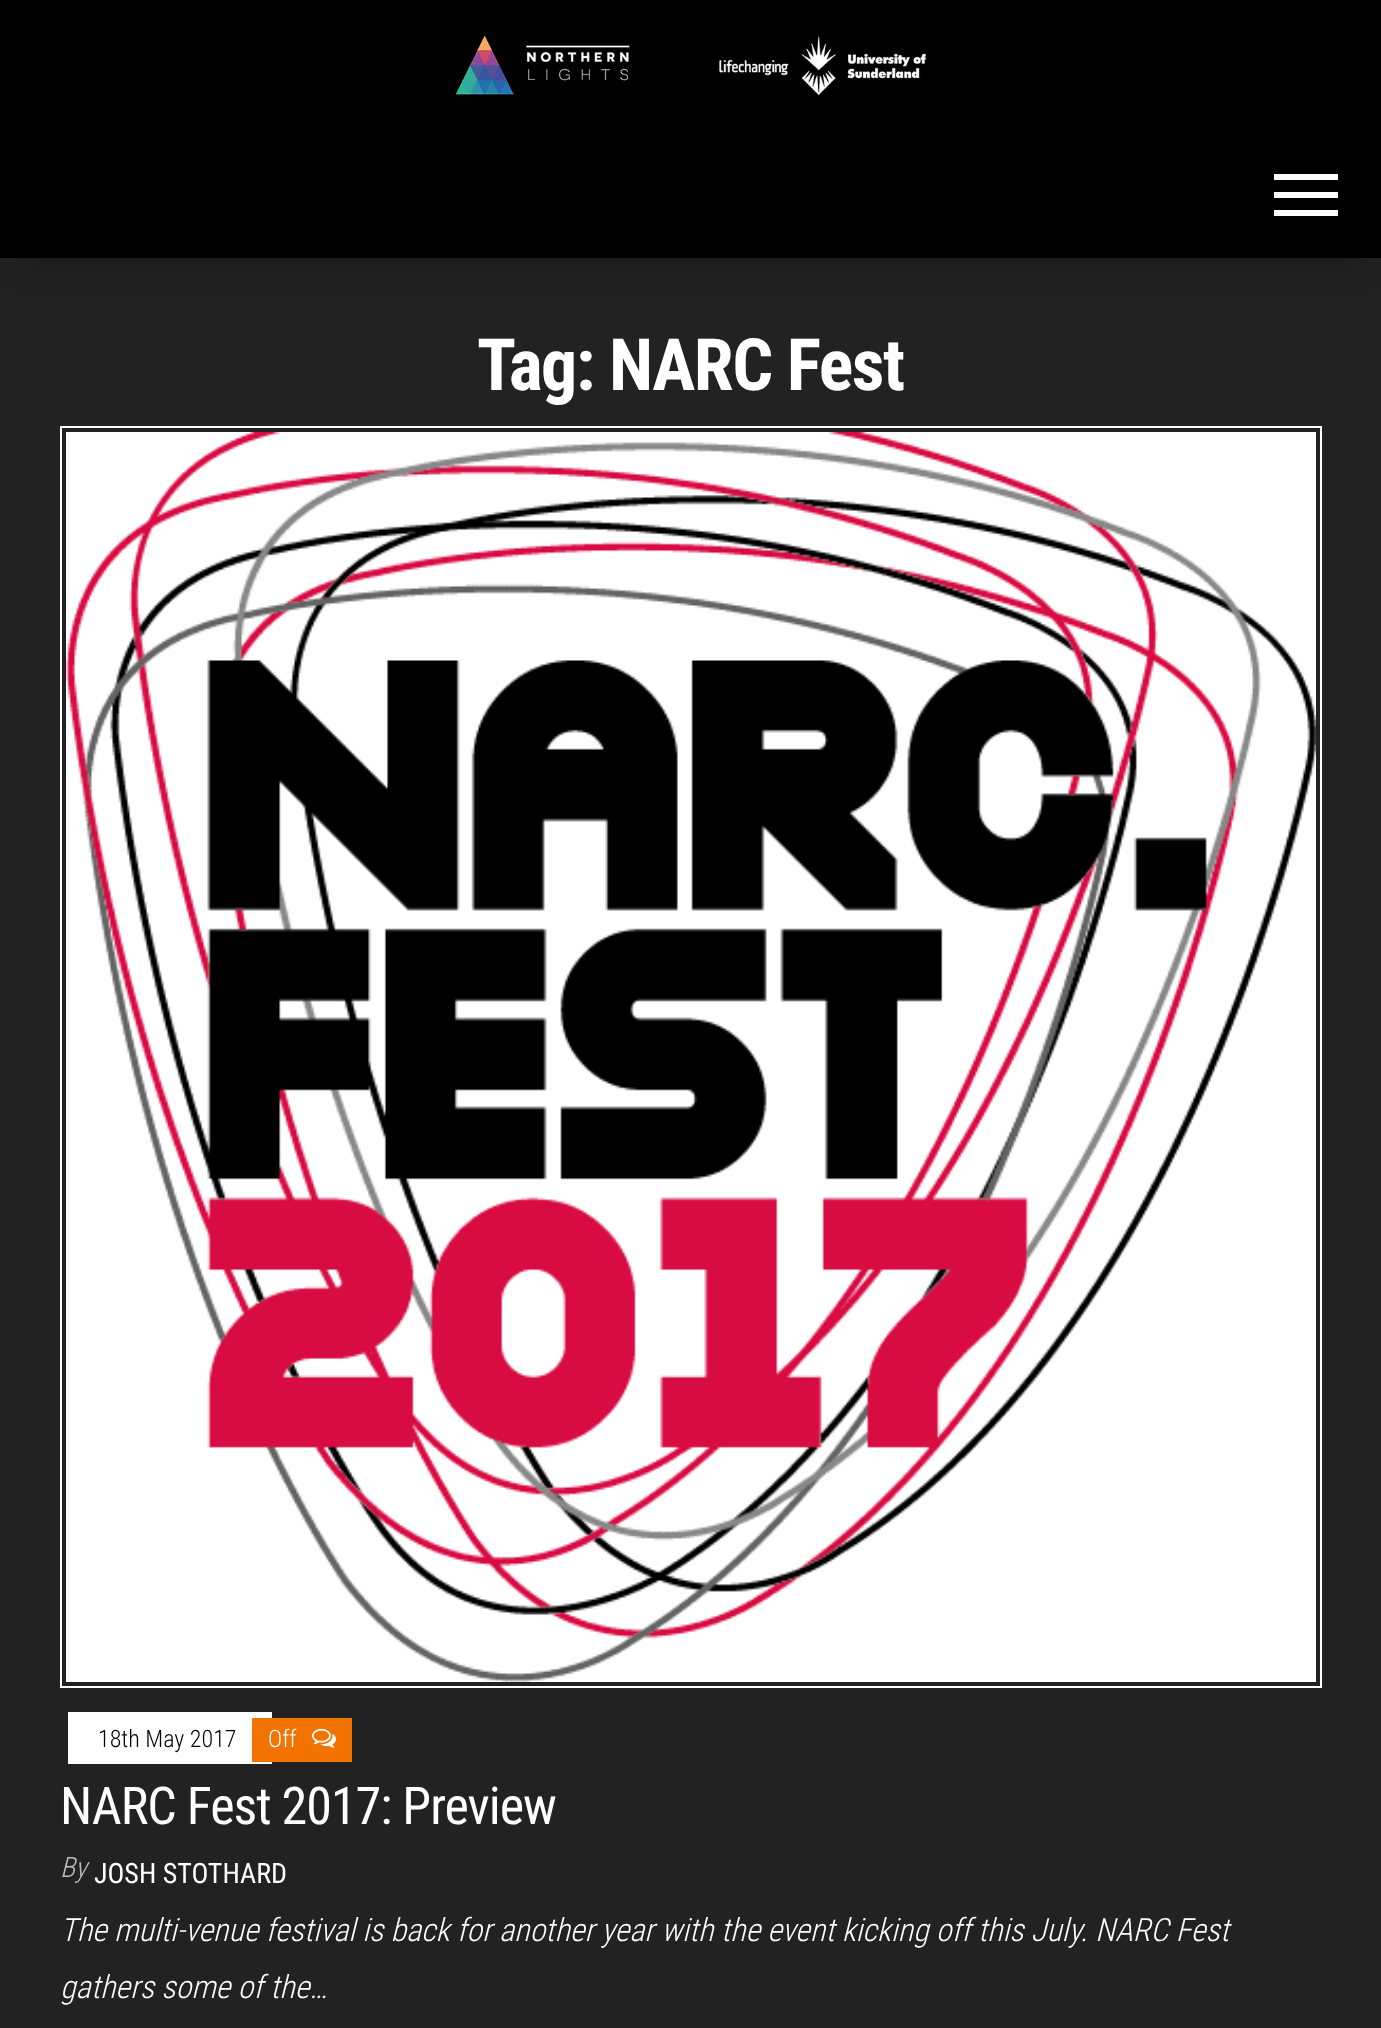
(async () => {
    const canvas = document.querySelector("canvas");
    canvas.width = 1381;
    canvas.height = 2028;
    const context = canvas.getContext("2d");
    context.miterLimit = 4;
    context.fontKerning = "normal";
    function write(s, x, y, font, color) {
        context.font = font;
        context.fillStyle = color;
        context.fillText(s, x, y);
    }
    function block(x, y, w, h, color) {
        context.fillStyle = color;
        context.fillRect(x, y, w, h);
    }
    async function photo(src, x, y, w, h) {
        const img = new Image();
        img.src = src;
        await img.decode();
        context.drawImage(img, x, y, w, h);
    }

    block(0, 0, 1381, 2028, "rgb(34, 34, 34)");
    await photo("media/1.png", 0, 0, 1381, 138);
    context.fillStyle = "rgba(0, 0, 0, 0.42)";
    context.filter = "blur(20px)";
    context.beginPath();
    context.rect(24, 182, 1334, 72);
    context.fill();
    context.filter = "none";
    block(0, 138, 1381, 120, "rgb(0, 0, 0)");
    block(1274, 174, 64, 6, "rgb(255, 255, 255)");
    block(1274, 192, 64, 6, "rgb(255, 255, 255)");
    block(1274, 210, 64, 6, "rgb(255, 255, 255)");
    context.letterSpacing = "-1.5px";
    write("Tag: NARC Fest", 477, 390, "bold 72px Roboto Condensed", "rgb(255, 255, 255)");
    context.strokeStyle = "rgb(255, 255, 255)";
    context.lineWidth = 2;
    context.strokeRect(61, 427, 1260, 1260);
    await photo("media/2.png", 66, 432, 1250, 1250);
    block(68, 1712, 204, 52, "rgb(255, 255, 255)");
    context.letterSpacing = "0px";
    write("18th May 2017", 98, 1747, "300 24px Roboto Condensed", "rgb(0, 0, 0)");
    block(252, 1718, 100, 44, "rgb(242, 115, 0)");
    write("Off", 268, 1747, "300 24px Roboto Condensed", "rgb(255, 255, 255)");
    await photo("media/3.png", 312, 1728, 24, 20);
    context.letterSpacing = "-1px";
    write("NARC Fest 2017: Preview", 60, 1824, "52px Roboto Condensed", "rgb(255, 255, 255)");
    context.letterSpacing = "0px";
    write("By", 60, 1877, "italic 300 28px Roboto Condensed", "rgb(189, 189, 189)");
    write("JOSH STOTHARD", 94, 1883, "28px Roboto Condensed", "rgb(255, 255, 255)");
    write("The multi-venue festival is back for another year with the event kicking off this July. NARC Fest", 60, 1941, "italic 300 32px Roboto Condensed", "rgb(255, 255, 255)");
    write("gathers some of the…", 60, 1998, "italic 300 32px Roboto Condensed", "rgb(255, 255, 255)");
})();
